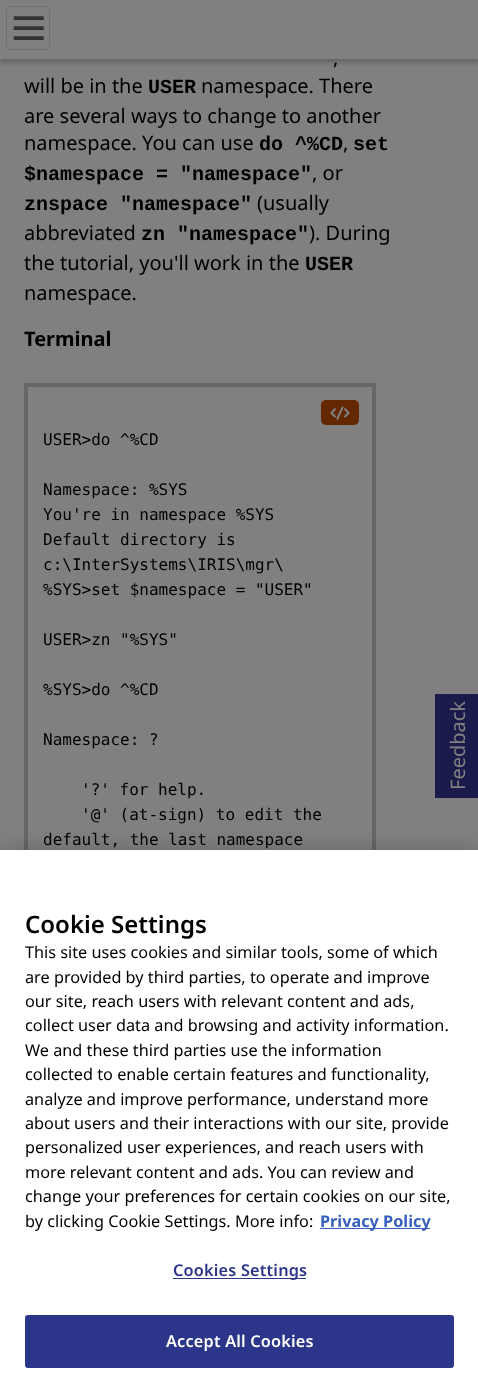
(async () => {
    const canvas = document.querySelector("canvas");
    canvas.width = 478;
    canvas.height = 1387;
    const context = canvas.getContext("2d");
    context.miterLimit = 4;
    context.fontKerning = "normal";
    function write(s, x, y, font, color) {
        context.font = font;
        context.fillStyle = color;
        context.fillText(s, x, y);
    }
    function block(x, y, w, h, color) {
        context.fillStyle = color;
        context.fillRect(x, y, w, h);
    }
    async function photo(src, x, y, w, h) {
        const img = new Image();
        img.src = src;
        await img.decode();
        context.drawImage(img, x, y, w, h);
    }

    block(0, 0, 478, 1387, "rgb(128, 128, 128)");
    context.fillStyle = "rgb(102, 102, 102)";
    context.filter = "blur(2px)";
    context.beginPath();
    context.rect(0, 4, 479, 59);
    context.fill();
    context.filter = "none";
    block(0, 1, 478, 58, "rgb(128, 128, 128)");
    context.beginPath();
    context.roundRect(6.5, 6.5, 43, 43, 3.5);
    context.strokeStyle = "rgb(112, 112, 112)";
    context.stroke();
    await photo("media/1.png", 13, 16, 31, 24);
    write(",", 333, 65, "20px Noto Sans", "rgb(0, 0, 0)");
    write("will be in the", 24, 93, "20px Noto Sans", "rgb(0, 0, 0)");
    write("USER", 148, 93, "bold 20px Liberation Mono", "rgb(0, 0, 0)");
    write("namespace. There", 201, 93, "20px Noto Sans", "rgb(0, 0, 0)");
    write("are several ways to change to another", 24, 123, "20px Noto Sans", "rgb(0, 0, 0)");
    write("namespace. You can use", 24, 150, "20px Noto Sans", "rgb(0, 0, 0)");
    write("do ^%CD", 259, 150, "bold 20px Liberation Mono", "rgb(0, 0, 0)");
    write(",", 343, 150, "20px Noto Sans", "rgb(0, 0, 0)");
    write("set", 353, 150, "bold 20px Liberation Mono", "rgb(0, 0, 0)");
    write("$namespace = \"namespace\"", 24, 180, "bold 20px Liberation Mono", "rgb(0, 0, 0)");
    write(", or", 312, 180, "20px Noto Sans", "rgb(0, 0, 0)");
    write("znspace \"namespace\"", 24, 210, "bold 20px Liberation Mono", "rgb(0, 0, 0)");
    write("(usually", 257, 210, "20px Noto Sans", "rgb(0, 0, 0)");
    write("abbreviated", 24, 240, "20px Noto Sans", "rgb(0, 0, 0)");
    write("zn \"namespace\"", 141, 240, "bold 20px Liberation Mono", "rgb(0, 0, 0)");
    write("). During", 309, 240, "20px Noto Sans", "rgb(0, 0, 0)");
    write("the tutorial, you'll work in the", 24, 270, "20px Noto Sans", "rgb(0, 0, 0)");
    write("USER", 305, 270, "bold 20px Liberation Mono", "rgb(0, 0, 0)");
    write("namespace.", 24, 300, "20px Noto Sans", "rgb(0, 0, 0)");
    write("Terminal", 24, 346, "bold 20px Noto Sans", "rgb(0, 0, 0)");
    context.strokeStyle = "rgb(102, 102, 102)";
    context.lineWidth = 4;
    context.strokeRect(26, 385, 348, 861);
    await photo("media/2.png", 321, 400, 38, 25);
    write("USER>do ^%CD", 43, 445, "16px DejaVu Sans Mono", "rgb(0, 0, 0)");
    write("Namespace: %SYS", 43, 495, "16px DejaVu Sans Mono", "rgb(0, 0, 0)");
    write("You're in namespace %SYS", 43, 520, "16px DejaVu Sans Mono", "rgb(0, 0, 0)");
    write("Default directory is", 43, 545, "16px DejaVu Sans Mono", "rgb(0, 0, 0)");
    write("c:\\InterSystems\\IRIS\\mgr\\", 43, 570, "16px DejaVu Sans Mono", "rgb(0, 0, 0)");
    write("%SYS>set $namespace = \"USER\"", 43, 595, "16px DejaVu Sans Mono", "rgb(0, 0, 0)");
    write("USER>zn \"%SYS\"", 43, 645, "16px DejaVu Sans Mono", "rgb(0, 0, 0)");
    write("%SYS>do ^%CD", 43, 695, "16px DejaVu Sans Mono", "rgb(0, 0, 0)");
    write("Namespace: ?", 43, 745, "16px DejaVu Sans Mono", "rgb(0, 0, 0)");
    write("'?' for help.", 81, 795, "16px DejaVu Sans Mono", "rgb(0, 0, 0)");
    write("'@' (at-sign) to edit the", 81, 820, "16px DejaVu Sans Mono", "rgb(0, 0, 0)");
    write("default, the last namespace", 43, 845, "16px DejaVu Sans Mono", "rgb(0, 0, 0)");
    block(435, 694, 43, 104, "rgb(26, 27, 75)");
    context.font = "20px Noto Sans";
    context.fillStyle = "rgb(128, 128, 128)";
    context.save();
    context.translate(465, 790);
    context.rotate(-90 * Math.PI / 180);
    context.fillText("Feedback", 0, 0);
    context.restore();
    context.fillStyle = "rgba(0, 0, 0, 0.2)";
    context.filter = "blur(11px)";
    context.beginPath();
    context.rect(0, 850, 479, 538);
    context.fill();
    context.filter = "none";
    block(0, 850, 478, 537, "rgb(255, 255, 255)");
    write("Cookie Settings", 25, 933, "600 24px Noto Sans", "rgb(0, 0, 0)");
    write("This site uses cookies and similar tools, some of which", 25, 958, "16.25px Noto Sans", "rgb(0, 0, 0)");
    write("are provided by third parties, to operate and improve", 25, 983, "16.25px Noto Sans", "rgb(0, 0, 0)");
    write("our site, reach users with relevant content and ads,", 25, 1007, "16.25px Noto Sans", "rgb(0, 0, 0)");
    write("collect user data and browsing and activity information.", 25, 1031, "16.25px Noto Sans", "rgb(0, 0, 0)");
    write("We and these third parties use the information", 25, 1056, "16.25px Noto Sans", "rgb(0, 0, 0)");
    write("collected to enable certain features and functionality,", 25, 1080, "16.25px Noto Sans", "rgb(0, 0, 0)");
    write("analyze and improve performance, understand more", 25, 1105, "16.25px Noto Sans", "rgb(0, 0, 0)");
    write("about users and their interactions with our site, provide", 25, 1129, "16.25px Noto Sans", "rgb(0, 0, 0)");
    write("personalized user experiences, and reach users with", 25, 1153, "16.25px Noto Sans", "rgb(0, 0, 0)");
    write("more relevant content and ads. You can review and", 25, 1178, "16.25px Noto Sans", "rgb(0, 0, 0)");
    write("change your preferences for certain cookies on our site,", 25, 1202, "16.25px Noto Sans", "rgb(0, 0, 0)");
    write("by clicking Cookie Settings. More info:", 25, 1227, "16.25px Noto Sans", "rgb(0, 0, 0)");
    block(320, 1228, 110, 1, "rgb(56, 96, 190)");
    write("Privacy Policy", 320, 1227, "bold 16.25px Noto Sans", "rgb(56, 96, 190)");
    block(173, 1278, 133, 1, "rgb(43, 53, 137)");
    context.letterSpacing = "0.2px";
    write("Cookies Settings", 173, 1276, "600 16.25px Noto Sans", "rgb(43, 53, 137)");
    context.beginPath();
    context.roundRect(25.5, 1315.5, 428, 52, 2);
    context.fill();
    context.strokeStyle = "rgb(43, 53, 137)";
    context.lineWidth = 1;
    context.stroke();
    write("Accept All Cookies", 166, 1347, "600 16.25px Noto Sans", "rgb(255, 255, 255)");
})();
